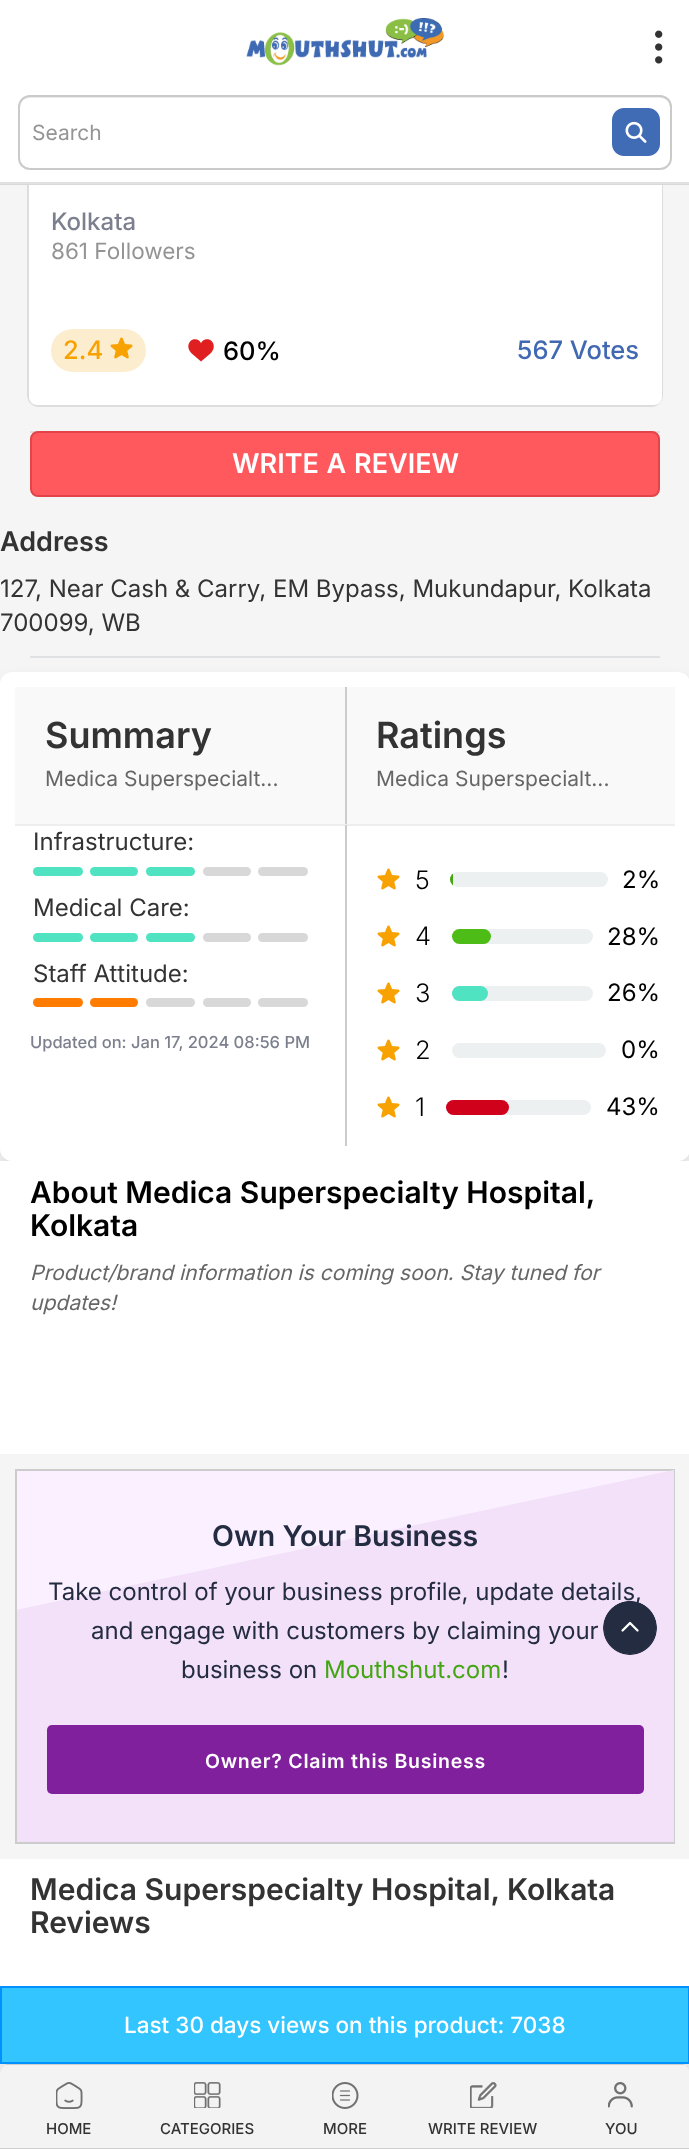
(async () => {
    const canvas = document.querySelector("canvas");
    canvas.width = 689;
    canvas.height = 2149;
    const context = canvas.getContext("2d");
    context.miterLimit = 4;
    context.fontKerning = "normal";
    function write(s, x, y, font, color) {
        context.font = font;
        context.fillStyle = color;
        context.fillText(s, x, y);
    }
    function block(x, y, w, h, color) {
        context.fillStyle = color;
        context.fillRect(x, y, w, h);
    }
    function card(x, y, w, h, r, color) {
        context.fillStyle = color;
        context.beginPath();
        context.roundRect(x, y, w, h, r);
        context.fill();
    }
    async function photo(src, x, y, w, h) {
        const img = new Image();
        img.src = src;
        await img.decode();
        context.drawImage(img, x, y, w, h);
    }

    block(0, 0, 689, 2149, "rgb(245, 245, 245)");
    context.beginPath();
    context.roundRect(28, -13, 634, 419, 11);
    context.strokeStyle = "rgb(221, 221, 221)";
    context.lineWidth = 2;
    context.stroke();
    context.fillStyle = "rgb(255, 255, 255)";
    context.beginPath();
    context.roundRect(29, 74, 633, 331, [0, 0, 8, 8]);
    context.fill();
    block(0, 0, 689, 182, "rgb(255, 255, 255)");
    block(0, 184, 689, 1, "rgb(217, 217, 217)");
    await photo("media/1.png", 246, 18, 198, 48);
    await photo("media/2.png", 655, 30, 8, 34);
    block(0, 182, 689, 2, "rgb(225, 225, 225)");
    context.fillStyle = "rgb(235, 235, 235)";
    context.beginPath();
    context.moveTo(30, 98);
    context.lineTo(660, 98);
    context.bezierCurveTo(666, 98, 670, 102, 670, 108);
    context.lineTo(670, 159);
    context.lineTo(670, 163);
    context.bezierCurveTo(670, 161, 671, 159, 671, 157);
    context.lineTo(671, 107);
    context.bezierCurveTo(671, 101, 666, 96, 660, 96);
    context.lineTo(31, 96);
    context.bezierCurveTo(25, 96, 20, 101, 20, 107);
    context.lineTo(20, 108);
    context.bezierCurveTo(20, 102, 24, 98, 30, 98);
    context.closePath();
    context.fill();
    context.beginPath();
    context.roundRect(19, 96, 652, 73, 11);
    context.strokeStyle = "rgb(202, 202, 202)";
    context.stroke();
    write("Search", 32, 140, "21px Inter", "rgb(148, 148, 148)");
    await photo("media/3.png", 612, 108, 48, 48);
    write("Kolkata", 51, 230, "500 24px Inter", "rgb(124, 128, 142)");
    write("861 Followers", 51, 259, "22.5px Inter", "rgb(148, 148, 148)");
    card(51, 329, 95, 43, 21.5, "rgb(253, 237, 207)");
    write("2.4", 63, 359, "500 25.5px Inter", "rgb(247, 162, 0)");
    await photo("media/4.png", 110, 337, 23, 22);
    await photo("media/5.png", 188, 339, 26, 23);
    write("60%", 223, 360, "500 25.5px Inter", "rgb(0, 0, 0)");
    write("567 Votes", 517, 359, "500 25.5px Inter", "rgb(65, 105, 178)");
    block(30, 431, 630, 2, "rgb(224, 225, 227)");
    context.fillStyle = "rgb(255, 89, 94)";
    context.beginPath();
    context.roundRect(31, 432, 628, 64, 7);
    context.fill();
    context.strokeStyle = "rgb(225, 68, 73)";
    context.stroke();
    context.wordSpacing = "1px";
    write("WRITE A REVIEW", 232, 473, "600 27px Inter", "rgb(255, 255, 255)");
    context.wordSpacing = "0px";
    write("Address", 0, 551, "600 27px Inter", "rgb(51, 51, 51)");
    write("127, Near Cash & Carry, EM Bypass, Mukundapur, Kolkata", 0, 597, "24px Inter", "rgb(51, 51, 51)");
    write("700099, WB", 0, 631, "24px Inter", "rgb(51, 51, 51)");
    block(30, 656, 630, 2, "rgb(224, 225, 227)");
    context.fillStyle = "rgba(0, 0, 0, 0.1)";
    context.filter = "blur(6px)";
    context.beginPath();
    context.roundRect(0, 678, 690, 489, 12);
    context.fill();
    context.filter = "none";
    card(0, 672, 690, 489, 12, "rgb(255, 255, 255)");
    block(15, 687, 660, 137, "rgb(249, 249, 249)");
    block(15, 824, 660, 2, "rgb(238, 238, 238)");
    write("Summary", 45, 748, "600 36px Inter", "rgb(51, 51, 51)");
    write("Medica Superspecialt...", 45, 786, "21px Inter", "rgb(102, 102, 102)");
    block(345, 687, 2, 137, "rgb(204, 204, 204)");
    write("Ratings", 376, 748, "600 36px Inter", "rgb(51, 51, 51)");
    write("Medica Superspecialt...", 376, 786, "21px Inter", "rgb(102, 102, 102)");
    write("Infrastructure:", 33, 850, "24px Inter", "rgb(51, 51, 51)");
    card(33, 867, 50, 9, 4.5, "rgb(80, 227, 194)");
    card(90, 867, 48, 9, 4.5, "rgb(80, 227, 194)");
    card(146, 867, 49, 9, 4.5, "rgb(80, 227, 194)");
    card(203, 867, 48, 9, 4.5, "rgb(216, 216, 216)");
    card(258, 867, 50, 9, 4.5, "rgb(216, 216, 216)");
    write("Medical Care:", 33, 916, "24px Inter", "rgb(51, 51, 51)");
    card(33, 933, 50, 9, 4.5, "rgb(80, 227, 194)");
    card(90, 933, 48, 9, 4.5, "rgb(80, 227, 194)");
    card(146, 933, 49, 9, 4.5, "rgb(80, 227, 194)");
    card(203, 933, 48, 9, 4.5, "rgb(216, 216, 216)");
    card(258, 933, 50, 9, 4.5, "rgb(216, 216, 216)");
    write("Staff Attitude:", 33, 982, "24px Inter", "rgb(51, 51, 51)");
    card(33, 998, 50, 9, 4.5, "rgb(255, 124, 0)");
    card(90, 998, 48, 9, 4.5, "rgb(255, 124, 0)");
    card(146, 998, 49, 9, 4.5, "rgb(216, 216, 216)");
    card(203, 998, 48, 9, 4.5, "rgb(216, 216, 216)");
    card(258, 998, 50, 9, 4.5, "rgb(216, 216, 216)");
    write("Updated on: Jan 17, 2024 08:56 PM", 30, 1048, "500 16.5px Inter", "rgb(124, 128, 142)");
    block(345, 825, 2, 321, "rgb(204, 204, 204)");
    await photo("media/6.png", 377, 868, 23, 22);
    write("5", 415, 889, "300 25.5px Inter", "rgb(0, 0, 0)");
    card(450, 872, 158, 15, 7.5, "rgb(236, 240, 241)");
    context.save();
    context.beginPath();
    context.roundRect(450, 872, 158, 15, 7.5);
    context.clip();
    card(450, 872, 3, 15, 1.5, "rgb(68, 165, 18)");
    context.restore();
    write("2%", 622, 888, "24px Inter", "rgb(0, 0, 0)");
    await photo("media/6.png", 377, 925, 23, 22);
    write("4", 415, 945, "300 25.5px Inter", "rgb(0, 0, 0)");
    card(452, 929, 141, 15, 7.5, "rgb(236, 240, 241)");
    card(452, 929, 39, 15, 7.5, "rgb(77, 188, 22)");
    write("28%", 607, 945, "24px Inter", "rgb(0, 0, 0)");
    await photo("media/6.png", 377, 982, 23, 22);
    write("3", 415, 1002, "300 25.5px Inter", "rgb(0, 0, 0)");
    card(452, 986, 141, 15, 7.5, "rgb(236, 240, 241)");
    card(452, 986, 36, 15, 7.5, "rgb(80, 227, 194)");
    write("26%", 607, 1001, "24px Inter", "rgb(0, 0, 0)");
    await photo("media/6.png", 377, 1039, 23, 22);
    write("2", 415, 1059, "300 25.5px Inter", "rgb(0, 0, 0)");
    card(452, 1043, 154, 15, 7.5, "rgb(236, 240, 241)");
    write("0%", 621, 1058, "24px Inter", "rgb(0, 0, 0)");
    await photo("media/6.png", 377, 1096, 23, 22);
    write("1", 415, 1116, "300 25.5px Inter", "rgb(0, 0, 0)");
    card(446, 1100, 145, 15, 7.5, "rgb(236, 240, 241)");
    card(446, 1100, 63, 15, 7.5, "rgb(208, 2, 27)");
    write("43%", 606, 1115, "24px Inter", "rgb(0, 0, 0)");
    block(0, 1161, 689, 293, "rgb(255, 255, 255)");
    write("About Medica Superspecialty Hospital,", 30, 1203, "600 30px Inter", "rgb(0, 0, 0)");
    write("Kolkata", 30, 1236, "600 30px Inter", "rgb(0, 0, 0)");
    write("Product/brand information is coming soon. Stay tuned for", 30, 1280, "italic 21px Inter", "rgb(102, 102, 102)");
    write("updates!", 30, 1310, "italic 21px Inter", "rgb(102, 102, 102)");
    block(17, 1471, 653, 139, "rgb(250, 240, 255)");
    context.strokeStyle = "rgb(204, 204, 204)";
    context.strokeRect(16, 1470, 658, 373);
    context.save();
    context.beginPath();
    context.rect(17, 1470, 657, 372);
    context.clip();
    context.fillStyle = "rgb(242, 225, 248)";
    context.beginPath();
    context.moveTo(16, 1610);
    context.lineTo(674, 1470);
    context.lineTo(674, 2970);
    context.lineTo(16, 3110);
    context.closePath();
    context.fill();
    context.restore();
    write("Own Your Business", 212, 1546, "600 28.5px Inter", "rgb(36, 44, 66)");
    write("Take control of your business profile, update details,", 48, 1600, "24px Inter", "rgb(36, 44, 66)");
    write("and engage with customers by claiming your", 91, 1639, "24px Inter", "rgb(36, 44, 66)");
    write("business on", 181, 1678, "24px Inter", "rgb(36, 44, 66)");
    write("Mouthshut.com", 324, 1678, "24px Inter", "rgb(68, 165, 18)");
    write("!", 502, 1678, "24px Inter", "rgb(36, 44, 66)");
    card(47, 1725, 597, 69, 5, "rgb(129, 32, 157)");
    context.letterSpacing = "0.75px";
    write("Owner? Claim this Business", 205, 1768, "600 19.5px Inter", "rgb(255, 255, 255)");
    await photo("media/7.png", 603, 1601, 54, 54);
    block(0, 1859, 689, 127, "rgb(255, 255, 255)");
    context.letterSpacing = "0px";
    write("Medica Superspecialty Hospital, Kolkata", 30, 1900, "600 30px Inter", "rgb(51, 51, 51)");
    write("Reviews", 30, 1933, "600 30px Inter", "rgb(51, 51, 51)");
    context.fillStyle = "rgba(0, 0, 0, 0.1)";
    context.filter = "blur(7.5px)";
    context.beginPath();
    context.roundRect(0, 2057, 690, 87, 12);
    context.fill();
    context.filter = "none";
    context.fillStyle = "rgb(243, 243, 243)";
    context.beginPath();
    context.moveTo(12, 2063);
    context.lineTo(678, 2063);
    context.bezierCurveTo(684.5, 2063, 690, 2068.5, 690, 2075);
    context.lineTo(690, 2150);
    context.lineTo(0, 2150);
    context.lineTo(0, 2075);
    context.bezierCurveTo(0, 2068.5, 5.5, 2063, 12, 2063);
    context.closePath();
    context.fill();
    block(6, 2064, 678, 1, "rgb(206, 206, 206)");
    block(0, 2148, 689, 1, "rgb(206, 206, 206)");
    await photo("media/8.png", 56, 2082, 27, 27);
    write("HOME", 46, 2134, "500 15px Inter", "rgb(51, 51, 51)");
    await photo("media/9.png", 194, 2082, 27, 26);
    write("CATEGORIES", 160, 2134, "500 15px Inter", "rgb(51, 51, 51)");
    await photo("media/10.png", 332, 2082, 27, 27);
    write("MORE", 323, 2134, "500 15px Inter", "rgb(51, 51, 51)");
    await photo("media/11.png", 470, 2082, 27, 26);
    write("WRITE REVIEW", 428, 2134, "500 15px Inter", "rgb(51, 51, 51)");
    await photo("media/12.png", 608, 2082, 25, 26);
    write("YOU", 605, 2134, "500 15px Inter", "rgb(51, 51, 51)");
    context.fillStyle = "rgb(50, 197, 255)";
    context.beginPath();
    context.rect(1, 1987, 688, 76);
    context.fill();
    context.strokeStyle = "rgb(0, 145, 255)";
    context.stroke();
    write("Last 30 days views on this product: 7038", 124, 2033, "500 22.5px Inter", "rgb(255, 255, 255)");
})();
